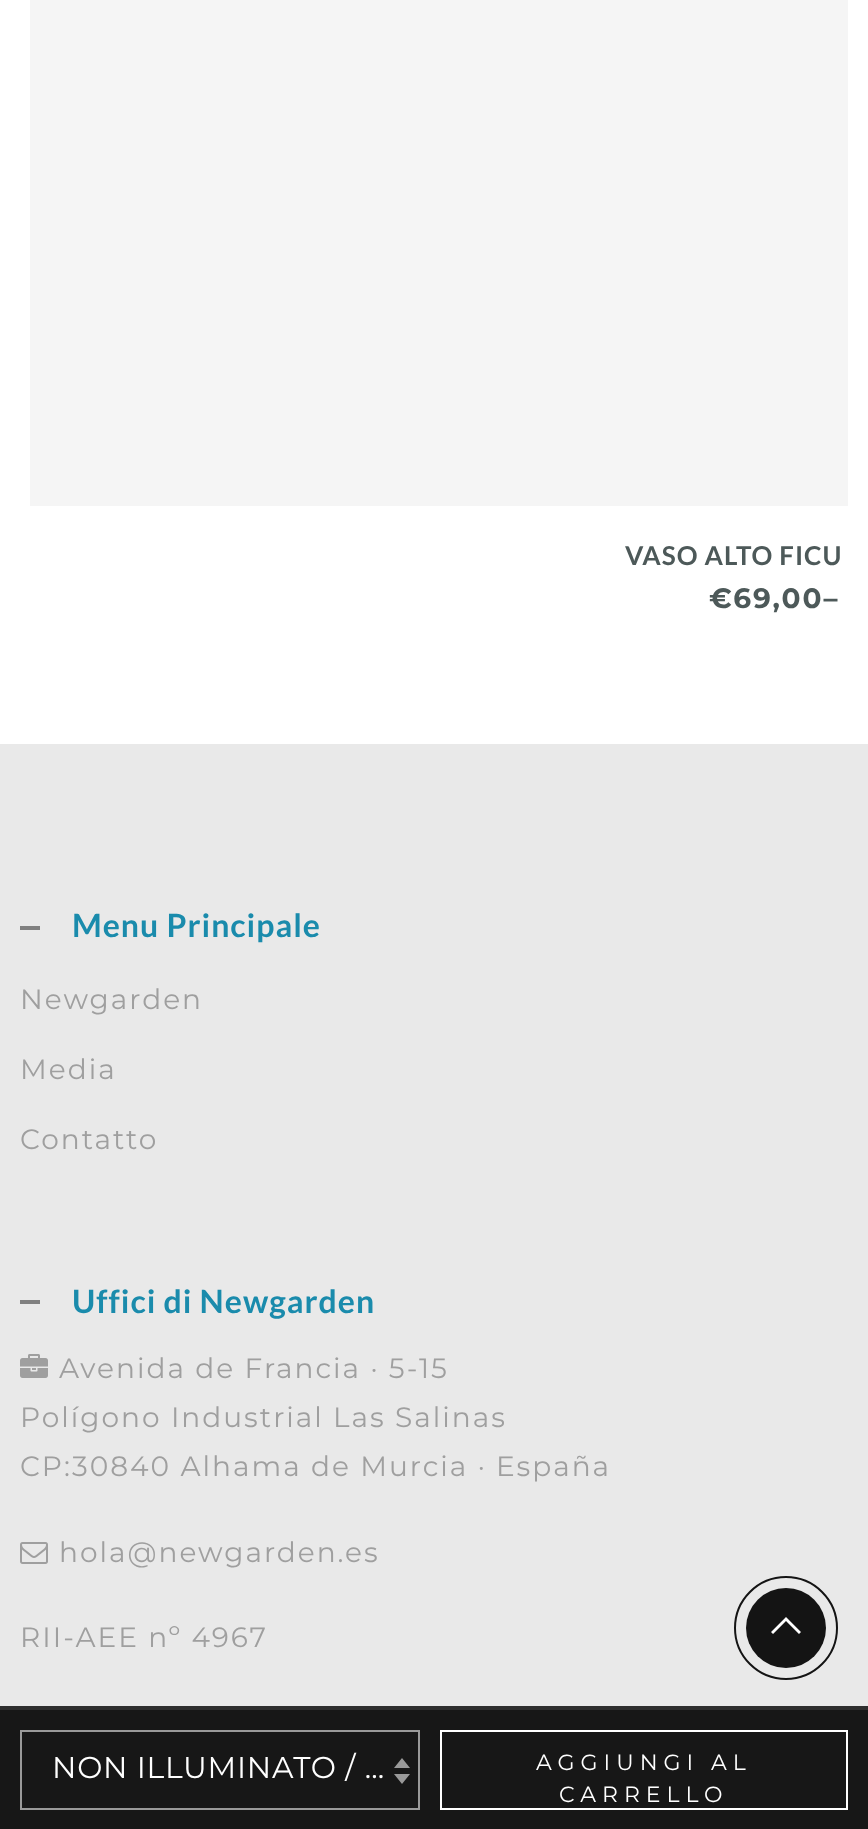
(async () => {
    const canvas = document.querySelector("canvas");
    canvas.width = 868;
    canvas.height = 1829;
    const context = canvas.getContext("2d");
    context.miterLimit = 4;
    context.fontKerning = "normal";
    function write(s, x, y, font, color) {
        context.font = font;
        context.fillStyle = color;
        context.fillText(s, x, y);
    }
    function block(x, y, w, h, color) {
        context.fillStyle = color;
        context.fillRect(x, y, w, h);
    }
    async function photo(src, x, y, w, h) {
        const img = new Image();
        img.src = src;
        await img.decode();
        context.drawImage(img, x, y, w, h);
    }

    block(0, 0, 868, 1829, "rgb(255, 255, 255)");
    block(30, 0, 818, 506, "rgb(245, 245, 245)");
    context.letterSpacing = "1px";
    write("VASO ALTO FICU", 625, 565, "bold 26px Lato", "rgb(77, 89, 89)");
    context.letterSpacing = "2px";
    write("€69,00–", 709, 608, "bold 28px Montserrat", "rgb(77, 89, 89)");
    block(0, 744, 868, 962, "rgb(233, 233, 233)");
    block(20, 926, 20, 4, "rgb(128, 128, 128)");
    context.letterSpacing = "1px";
    write("Menu Principale", 72, 937, "bold 32px Lato", "rgb(26, 139, 172)");
    context.letterSpacing = "2px";
    write("Newgarden", 20, 1009, "100 28px Montserrat", "rgb(159, 159, 159)");
    write("Media", 20, 1079, "100 28px Montserrat", "rgb(159, 159, 159)");
    write("Contatto", 20, 1149, "100 28px Montserrat", "rgb(159, 159, 159)");
    block(20, 1300, 20, 4, "rgb(128, 128, 128)");
    context.letterSpacing = "1px";
    write("Uffici di Newgarden", 72, 1313, "bold 32px Lato", "rgb(26, 139, 172)");
    await photo("media/1.png", 20, 1354, 28, 24);
    context.letterSpacing = "2px";
    write("Avenida de Francia · 5-15", 59, 1378, "100 28px Montserrat", "rgb(159, 159, 159)");
    write("Polígono Industrial Las Salinas", 20, 1427, "100 28px Montserrat", "rgb(159, 159, 159)");
    write("CP:30840 Alhama de Murcia · España", 20, 1476, "100 28px Montserrat", "rgb(159, 159, 159)");
    await photo("media/2.png", 20, 1542, 28, 22);
    write("hola@newgarden.es", 59, 1562, "100 28px Montserrat", "rgb(159, 159, 159)");
    write("RII-AEE nº 4967", 20, 1647, "100 28px Montserrat", "rgb(159, 159, 159)");
    block(0, 1710, 868, 119, "rgb(23, 23, 23)");
    block(0, 1706, 868, 4, "rgb(46, 46, 46)");
    context.fillStyle = "rgb(153, 153, 153)";
    context.beginPath();
    context.moveTo(394, 1774);
    context.lineTo(402, 1784);
    context.lineTo(410, 1774);
    context.closePath();
    context.moveTo(402, 1758);
    context.lineTo(394, 1768);
    context.lineTo(410, 1768);
    context.closePath();
    context.fill();
    context.strokeStyle = "rgb(153, 153, 153)";
    context.lineWidth = 2;
    context.strokeRect(21, 1731, 398, 78);
    context.letterSpacing = "0.75px";
    write("NON ILLUMINATO / …", 52, 1778, "100 30px Montserrat", "rgb(255, 255, 255)");
    context.strokeStyle = "rgb(255, 255, 255)";
    context.strokeRect(441, 1731, 406, 78);
    context.letterSpacing = "6px";
    write("AGGIUNGI AL", 536, 1770, "100 22px Montserrat", "rgb(255, 255, 255)");
    write("CARRELLO", 559, 1802, "100 22px Montserrat", "rgb(255, 255, 255)");
    context.beginPath();
    context.arc(786, 1628, 51, 0, Math.PI * 2);
    context.strokeStyle = "rgb(20, 20, 20)";
    context.stroke();
    context.fillStyle = "rgb(20, 20, 20)";
    context.beginPath();
    context.arc(786, 1628, 40, 0, Math.PI * 2);
    context.fill();
    context.fillStyle = "rgb(255, 255, 255)";
    context.beginPath();
    context.moveTo(788, 1619);
    context.lineTo(786, 1617);
    context.lineTo(771, 1632);
    context.lineTo(773, 1634);
    context.lineTo(786, 1621);
    context.lineTo(799, 1634);
    context.lineTo(801, 1632);
    context.closePath();
    context.fill();
})();
